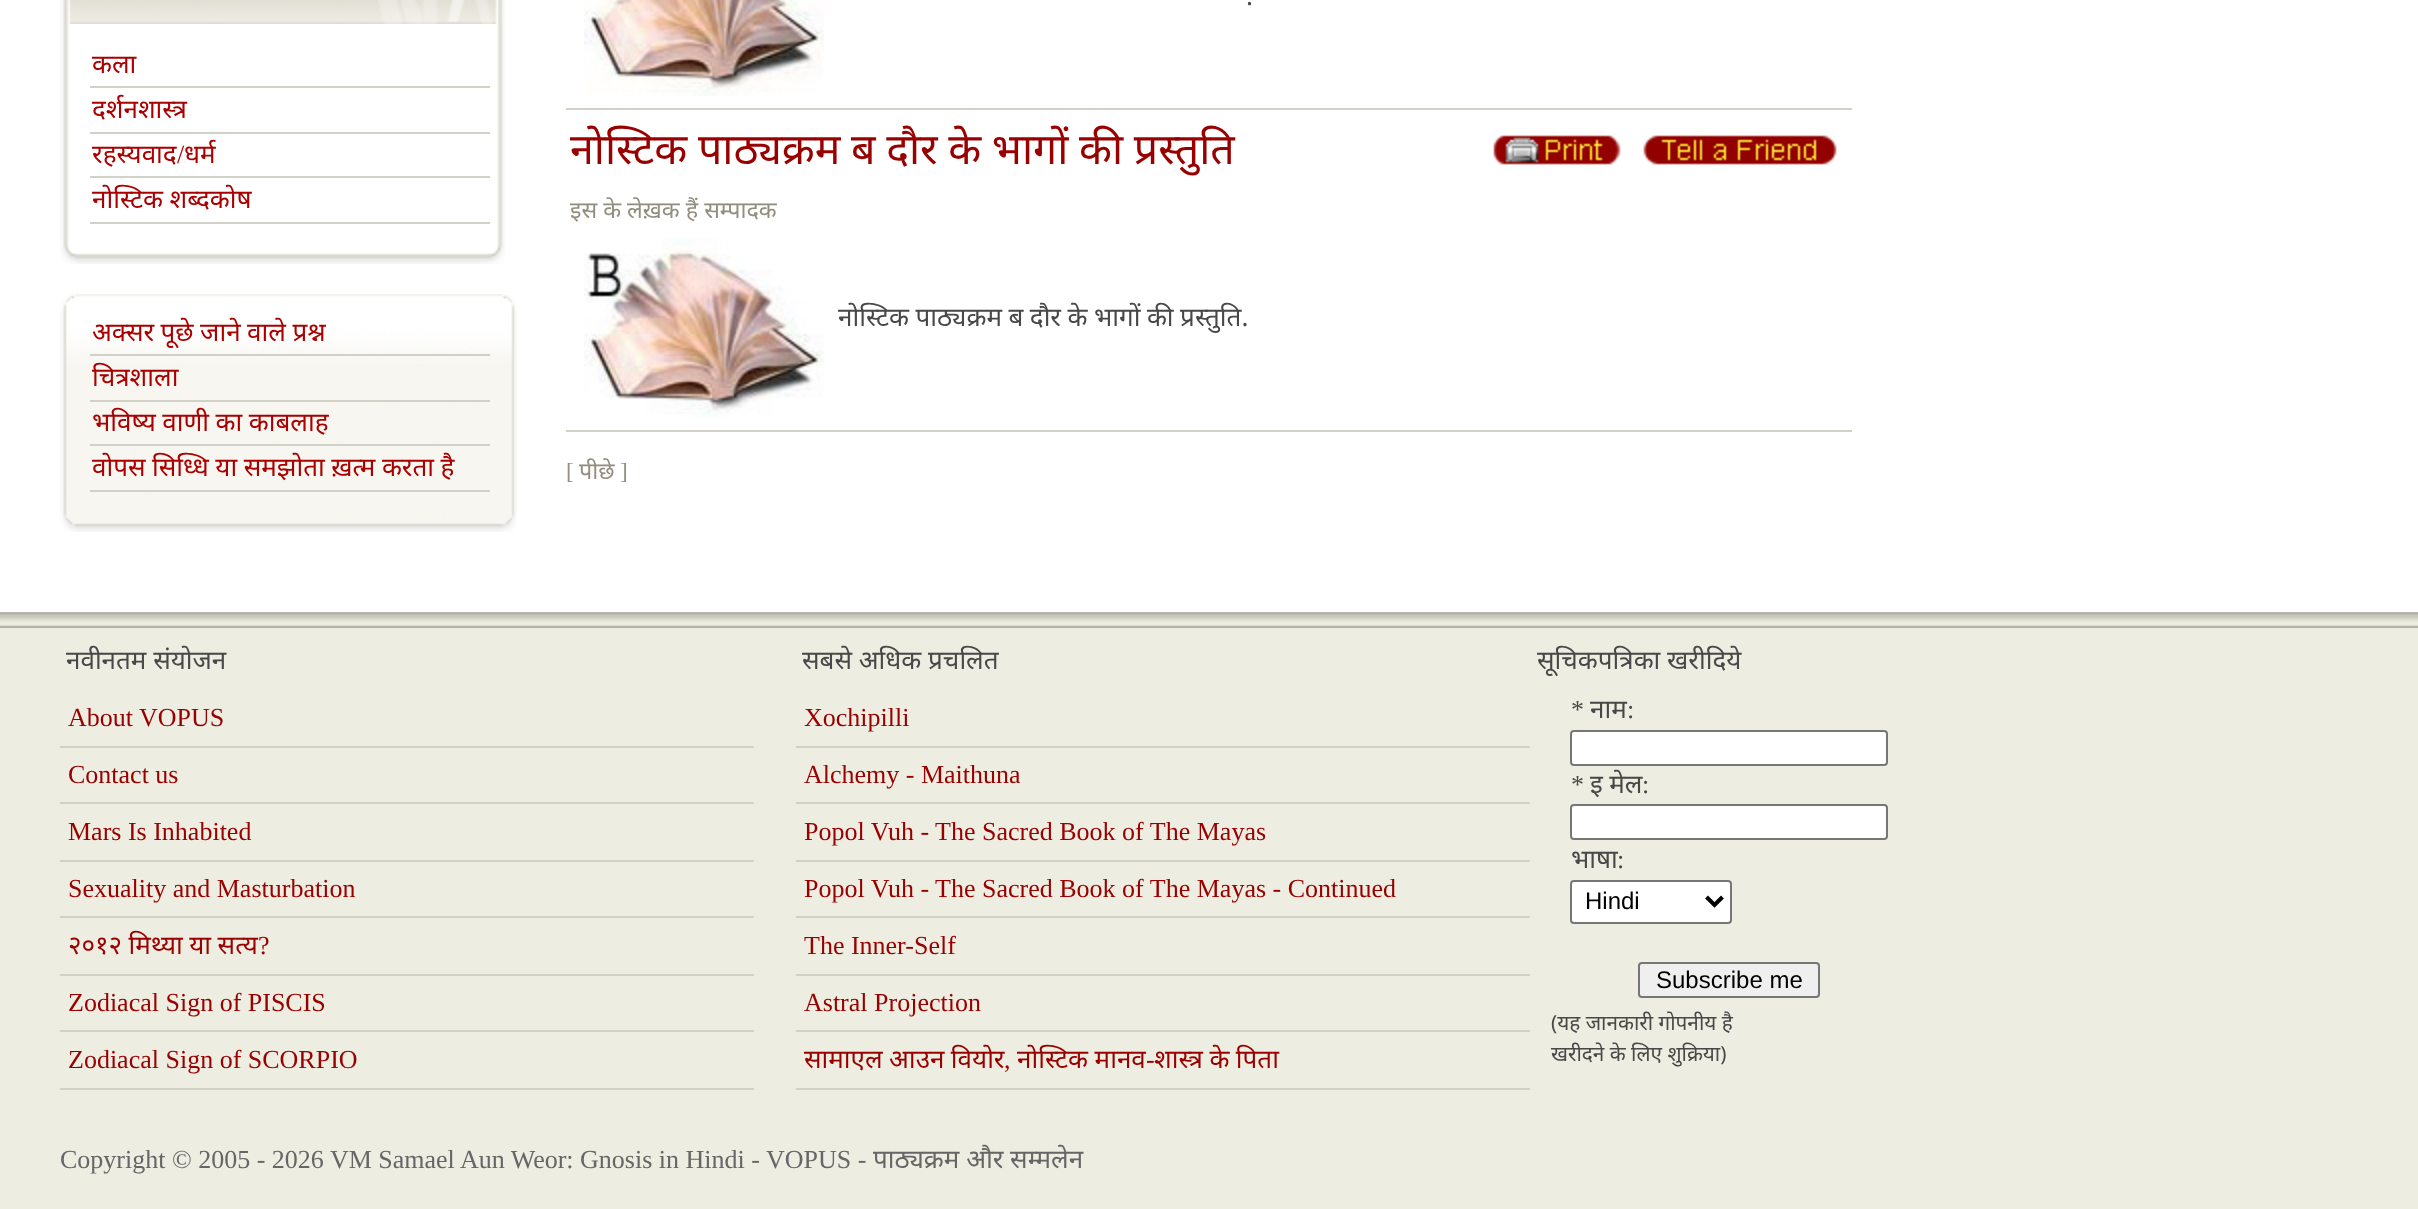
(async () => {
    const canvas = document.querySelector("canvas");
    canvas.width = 2418;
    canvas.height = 1209;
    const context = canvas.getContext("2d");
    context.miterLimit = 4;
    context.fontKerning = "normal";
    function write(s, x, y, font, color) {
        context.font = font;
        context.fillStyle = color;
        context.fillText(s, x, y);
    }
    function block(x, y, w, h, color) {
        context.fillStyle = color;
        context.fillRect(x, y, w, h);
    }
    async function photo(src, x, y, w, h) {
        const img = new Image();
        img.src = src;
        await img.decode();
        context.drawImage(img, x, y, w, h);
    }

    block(0, 0, 2418, 1209, "rgb(237, 237, 225)");
    block(0, 0, 2418, 612, "rgb(255, 255, 255)");
    await photo("media/1.png", 76, 0, 429, 264);
    await photo("media/2.png", 60, 24, 16, 240);
    await photo("media/3.png", 71, 0, 426, 24);
    await photo("media/4.png", 60, 0, 11, 24);
    block(90, 86, 400, 2, "rgb(209, 209, 199)");
    write("कला", 92, 73, "26px Noto Sans", "rgb(170, 0, 0)");
    block(90, 132, 400, 2, "rgb(209, 209, 199)");
    write("दर्शनशास्त्र", 92, 118, "26px Noto Sans", "rgb(170, 0, 0)");
    block(90, 176, 400, 2, "rgb(209, 209, 199)");
    write("रहस्यवाद", 92, 163, "26px Noto Sans", "rgb(170, 0, 0)");
    write("/", 177, 163, "26px Liberation Serif", "rgb(170, 0, 0)");
    write("धर्म", 184, 163, "26px Noto Sans", "rgb(170, 0, 0)");
    block(90, 222, 400, 2, "rgb(209, 209, 199)");
    context.wordSpacing = "-0.25px";
    write("नोस्टिक शब्दकोष", 92, 208, "26px Noto Sans", "rgb(170, 0, 0)");
    await photo("media/5.png", 76, 364, 441, 168);
    await photo("media/6.png", 60, 364, 16, 168);
    await photo("media/7.png", 76, 294, 441, 70);
    await photo("media/8.png", 60, 294, 16, 70);
    block(90, 354, 400, 2, "rgb(209, 209, 199)");
    write("अक्सर पूछे जाने वाले प्रश्न", 92, 341, "26px Noto Sans", "rgb(170, 0, 0)");
    block(90, 400, 400, 2, "rgb(209, 209, 199)");
    context.wordSpacing = "0px";
    write("चित्रशाला", 92, 386, "26px Noto Sans", "rgb(170, 0, 0)");
    block(90, 444, 400, 2, "rgb(209, 209, 199)");
    context.wordSpacing = "-0.25px";
    write("भविष्य वाणी का काबलाह", 92, 431, "26px Noto Sans", "rgb(170, 0, 0)");
    block(90, 490, 400, 2, "rgb(209, 209, 199)");
    write("वोपस सिध्धि या समझोता ख़त्म करता है", 92, 476, "26px Noto Sans", "rgb(170, 0, 0)");
    await photo("media/9.png", 584, 0, 240, 96);
    context.wordSpacing = "0px";
    write(".", 1246, 5, "26px Noto Sans", "rgb(72, 72, 72)");
    block(566, 108, 1286, 2, "rgb(209, 209, 199)");
    context.wordSpacing = "-0.5px";
    write("नोस्टिक पाठ्यक्रम ब दौर के भागों की प्रस्तुति", 570, 164, "42.9px Noto Sans", "rgb(153, 0, 0)");
    await photo("media/10.png", 1493, 135, 128, 30);
    await photo("media/11.png", 1643, 135, 194, 30);
    context.wordSpacing = "0px";
    write("इस के लेख़क हैं सम्पादक", 570, 218, "23.25px Noto Sans", "rgb(145, 142, 127)");
    await photo("media/12.png", 584, 238, 240, 180);
    context.wordSpacing = "-0.25px";
    write("नोस्टिक पाठ्यक्रम ब दौर के भागों की प्रस्तुति.", 838, 326, "26px Noto Sans", "rgb(72, 72, 72)");
    block(566, 430, 1286, 2, "rgb(209, 209, 199)");
    context.wordSpacing = "0px";
    write("[", 566, 479, "23.25px Liberation Serif", "rgb(145, 142, 127)");
    write("पीछे", 579, 479, "23.25px Noto Sans", "rgb(145, 142, 127)");
    write("]", 620, 479, "23.25px Liberation Serif", "rgb(145, 142, 127)");
    await photo("media/13.png", 0, 612, 2418, 16);
    write("नवीनतम संयोजन", 66, 669, "26px Noto Sans", "rgb(72, 72, 72)");
    block(60, 746, 694, 2, "rgb(209, 209, 199)");
    write("About VOPUS", 68, 726, "26px Liberation Serif", "rgb(153, 0, 0)");
    block(60, 802, 694, 2, "rgb(209, 209, 199)");
    write("Contact us", 68, 783, "26px Liberation Serif", "rgb(153, 0, 0)");
    block(60, 860, 694, 2, "rgb(209, 209, 199)");
    write("Mars Is Inhabited", 68, 840, "26px Liberation Serif", "rgb(153, 0, 0)");
    block(60, 916, 694, 2, "rgb(209, 209, 199)");
    write("Sexuality and Masturbation", 68, 897, "26px Liberation Serif", "rgb(153, 0, 0)");
    block(60, 974, 694, 2, "rgb(209, 209, 199)");
    context.wordSpacing = "-0.25px";
    write("२०१२ मिथ्या या सत्य", 68, 954, "26px Noto Sans", "rgb(153, 0, 0)");
    context.wordSpacing = "0px";
    write("?", 258, 954, "26px Liberation Serif", "rgb(153, 0, 0)");
    block(60, 1030, 694, 2, "rgb(209, 209, 199)");
    write("Zodiacal Sign of PISCIS", 68, 1011, "26px Liberation Serif", "rgb(153, 0, 0)");
    block(60, 1088, 694, 2, "rgb(209, 209, 199)");
    write("Zodiacal Sign of SCORPIO", 68, 1068, "26px Liberation Serif", "rgb(153, 0, 0)");
    write("सबसे अधिक प्रचलित", 802, 669, "26px Noto Sans", "rgb(72, 72, 72)");
    block(796, 746, 734, 2, "rgb(209, 209, 199)");
    write("Xochipilli", 804, 726, "26px Liberation Serif", "rgb(153, 0, 0)");
    block(796, 802, 734, 2, "rgb(209, 209, 199)");
    write("Alchemy - Maithuna", 804, 783, "26px Liberation Serif", "rgb(153, 0, 0)");
    block(796, 860, 734, 2, "rgb(209, 209, 199)");
    write("Popol Vuh - The Sacred Book of The Mayas", 804, 840, "26px Liberation Serif", "rgb(153, 0, 0)");
    block(796, 916, 734, 2, "rgb(209, 209, 199)");
    write("Popol Vuh - The Sacred Book of The Mayas - Continued", 804, 897, "26px Liberation Serif", "rgb(153, 0, 0)");
    block(796, 974, 734, 2, "rgb(209, 209, 199)");
    write("The Inner-Self", 804, 954, "26px Liberation Serif", "rgb(153, 0, 0)");
    block(796, 1030, 734, 2, "rgb(209, 209, 199)");
    write("Astral Projection", 804, 1011, "26px Liberation Serif", "rgb(153, 0, 0)");
    block(796, 1088, 734, 2, "rgb(209, 209, 199)");
    context.wordSpacing = "-0.25px";
    write("सामाएल आउन वियोर", 804, 1068, "26px Noto Sans", "rgb(153, 0, 0)");
    write("नोस्टिक मानव", 1017, 1068, "26px Noto Sans", "rgb(153, 0, 0)");
    context.wordSpacing = "0px";
    write("-", 1146, 1068, "26px Liberation Serif", "rgb(153, 0, 0)");
    context.wordSpacing = "-0.25px";
    write("शास्त्र के पिता", 1154, 1068, "26px Noto Sans", "rgb(153, 0, 0)");
    context.wordSpacing = "0px";
    write(",", 1004, 1068, "26px Liberation Serif", "rgb(153, 0, 0)");
    context.save();
    context.beginPath();
    context.rect(1530, 642, 736, 458);
    context.clip();
    write("सूचिकपत्रिका खरीदिये", 1537, 669, "26px Noto Sans", "rgb(72, 72, 72)");
    context.restore();
    write("*", 1571, 718, "26px Liberation Serif", "rgb(72, 72, 72)");
    write("नाम", 1590, 718, "26px Noto Sans", "rgb(72, 72, 72)");
    write(":", 1627, 718, "26px Liberation Serif", "rgb(72, 72, 72)");
    context.fillStyle = "rgb(255, 255, 255)";
    context.beginPath();
    context.roundRect(1571, 731, 316, 34, 3);
    context.fill();
    context.strokeStyle = "rgb(118, 118, 118)";
    context.lineWidth = 2;
    context.stroke();
    write("*", 1571, 793, "26px Liberation Serif", "rgb(72, 72, 72)");
    context.wordSpacing = "-0.25px";
    write("इ मेल", 1590, 793, "26px Noto Sans", "rgb(72, 72, 72)");
    context.wordSpacing = "0px";
    write(":", 1642, 793, "26px Liberation Serif", "rgb(72, 72, 72)");
    context.fillStyle = "rgb(255, 255, 255)";
    context.beginPath();
    context.roundRect(1571, 805, 316, 34, 3);
    context.fill();
    context.stroke();
    write("भाषा", 1571, 868, "26px Noto Sans", "rgb(72, 72, 72)");
    write(":", 1617, 868, "26px Liberation Serif", "rgb(72, 72, 72)");
    context.fillStyle = "rgb(255, 255, 255)";
    context.beginPath();
    context.roundRect(1571, 881, 160, 42, 3);
    context.fill();
    context.stroke();
    context.beginPath();
    context.moveTo(1706.5, 897);
    context.lineTo(1714.5, 905);
    context.lineTo(1722.5, 897);
    context.strokeStyle = "rgb(0, 0, 0)";
    context.lineWidth = 4;
    context.stroke();
    write("Hindi", 1585, 909, "24px Liberation Sans", "rgb(0, 0, 0)");
    context.fillStyle = "rgb(239, 239, 239)";
    context.beginPath();
    context.roundRect(1639, 963, 180, 34, 3);
    context.fill();
    context.strokeStyle = "rgb(118, 118, 118)";
    context.lineWidth = 2;
    context.stroke();
    write("Subscribe me", 1656, 988, "24px Liberation Sans", "rgb(0, 0, 0)");
    write("(यह जानकारी गोपनीय है", 1551, 1030, "20.75px Noto Sans", "rgb(72, 72, 72)");
    write("खरीदने के लिए शुक्रिया)", 1551, 1061, "20.75px Noto Sans", "rgb(72, 72, 72)");
    write("Copyright © 2005 - 2026 VM Samael Aun Weor: Gnosis in Hindi - VOPUS -", 60, 1168, "26px Liberation Serif", "rgb(102, 102, 102)");
    write("पाठ्यक्रम और सम्मलेन", 873, 1168, "26px Noto Sans", "rgb(102, 102, 102)");
})();
